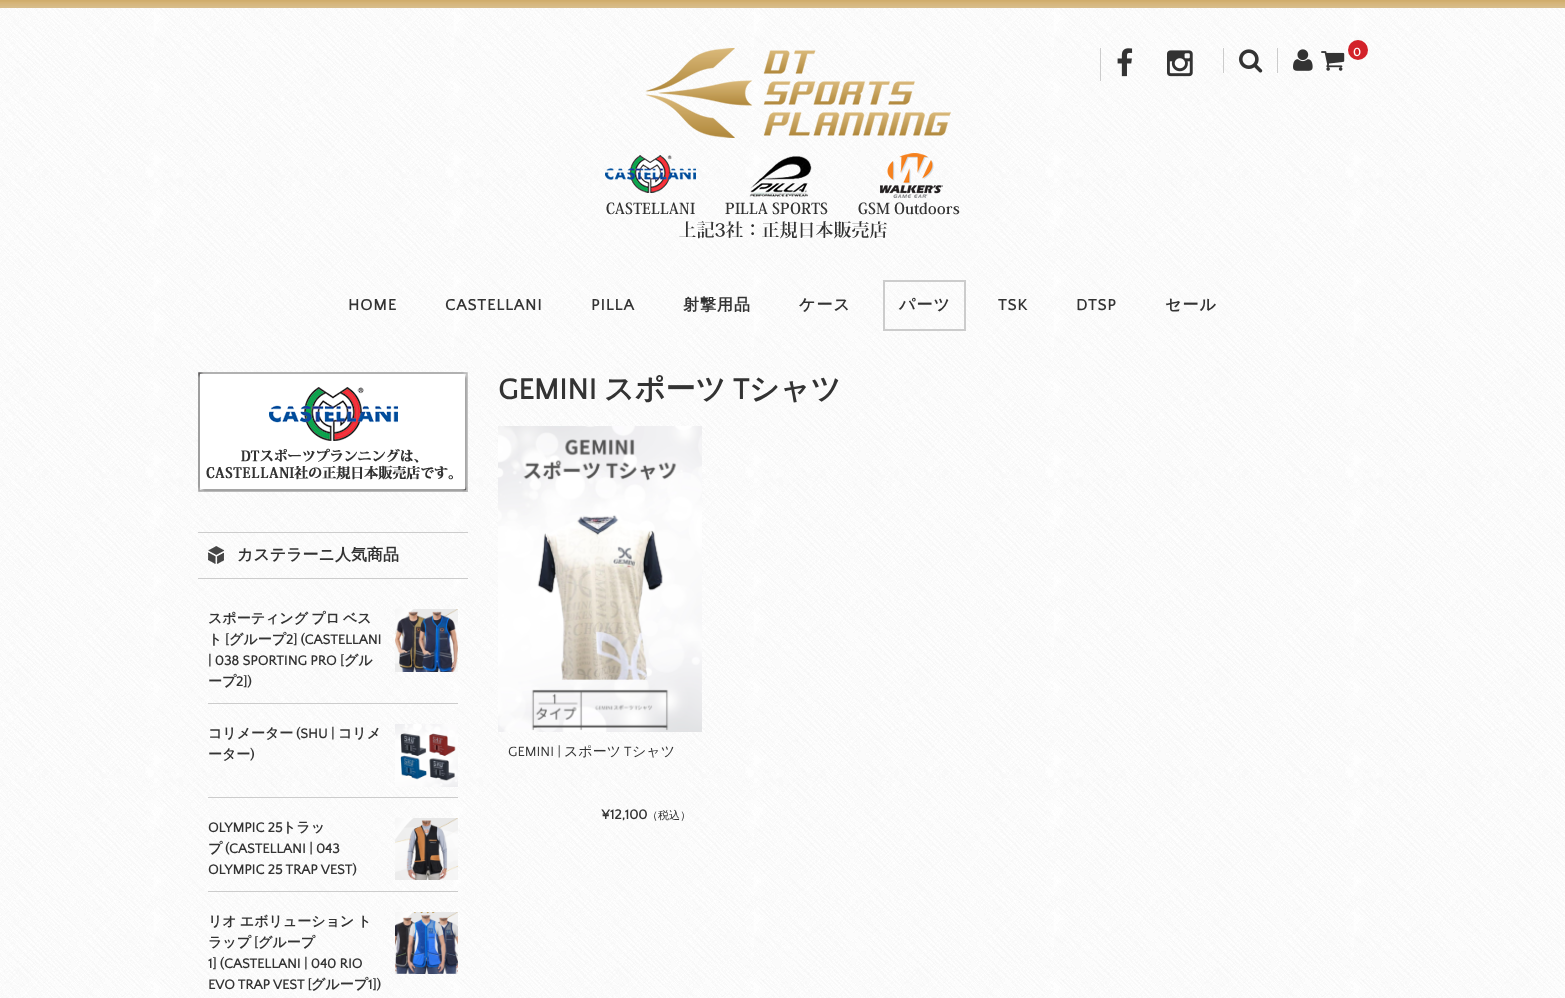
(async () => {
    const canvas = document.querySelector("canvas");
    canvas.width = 1565;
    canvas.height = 998;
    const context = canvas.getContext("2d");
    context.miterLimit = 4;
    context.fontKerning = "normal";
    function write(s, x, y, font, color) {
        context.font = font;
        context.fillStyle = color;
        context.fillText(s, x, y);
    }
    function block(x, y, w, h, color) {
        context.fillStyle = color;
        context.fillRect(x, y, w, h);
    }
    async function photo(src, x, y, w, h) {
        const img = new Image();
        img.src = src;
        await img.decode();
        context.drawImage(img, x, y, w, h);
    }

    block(0, 0, 1565, 998, "rgb(255, 255, 255)");
    await photo("media/1.png", 0, 8, 1565, 990);
    await photo("media/2.png", 0, 0, 1565, 8);
    await photo("media/3.png", 605, 48, 355, 191);
    await photo("media/4.png", 1321, 51, 24, 20);
    context.fillStyle = "rgb(211, 34, 42)";
    context.beginPath();
    context.arc(1358, 50, 10, 0, Math.PI * 2);
    context.fill();
    context.letterSpacing = "1px";
    write("0", 1353, 56, "bold 12px Quattrocento Sans", "rgb(255, 255, 255)");
    block(1100, 48, 1, 33, "rgb(204, 204, 204)");
    await photo("media/5.png", 1117, 48, 16, 29);
    await photo("media/6.png", 1167, 50, 26, 27);
    block(1223, 48, 1, 25, "rgb(204, 204, 204)");
    await photo("media/7.png", 1239, 49, 24, 24);
    block(1277, 48, 1, 25, "rgb(204, 204, 204)");
    await photo("media/8.png", 1293, 49, 20, 22);
    write("HOME", 348, 310, "bold 16px Quattrocento Sans", "rgb(51, 51, 51)");
    write("CASTELLANI", 445, 310, "bold 16px Quattrocento Sans", "rgb(51, 51, 51)");
    write("PILLA", 591, 310, "bold 16px Quattrocento Sans", "rgb(51, 51, 51)");
    write("射撃用品", 683, 310, "bold 16px WenQuanYi Zen Hei", "rgb(51, 51, 51)");
    write("ケース", 799, 310, "bold 16px WenQuanYi Zen Hei", "rgb(51, 51, 51)");
    block(883, 280, 2, 51, "rgb(204, 204, 204)");
    block(883, 280, 83, 2, "rgb(204, 204, 204)");
    write("パーツ", 899, 310, "bold 16px WenQuanYi Zen Hei", "rgb(51, 51, 51)");
    block(883, 329, 83, 2, "rgb(204, 204, 204)");
    block(964, 280, 2, 51, "rgb(204, 204, 204)");
    write("TSK", 998, 310, "bold 16px Quattrocento Sans", "rgb(51, 51, 51)");
    write("DTSP", 1076, 310, "bold 16px Quattrocento Sans", "rgb(51, 51, 51)");
    write("セール", 1165, 310, "bold 16px WenQuanYi Zen Hei", "rgb(51, 51, 51)");
    await photo("media/9.png", 198, 372, 270, 120);
    block(198, 532, 270, 1, "rgb(204, 204, 204)");
    block(198, 578, 270, 1, "rgb(204, 204, 204)");
    await photo("media/10.png", 208, 546, 16, 18);
    context.letterSpacing = "0px";
    write("カステラーニ人気商品", 237, 560, "bold 16px WenQuanYi Zen Hei", "rgb(51, 51, 51)");
    block(208, 703, 250, 1, "rgb(204, 204, 204)");
    context.wordSpacing = "-1px";
    write("スポーティング プロ ベス", 208, 623, "bold 14px WenQuanYi Zen Hei", "rgb(51, 51, 51)");
    context.wordSpacing = "0px";
    write("ト", 208, 644, "bold 14px WenQuanYi Zen Hei", "rgb(51, 51, 51)");
    write("[", 225, 644, "bold 14px Quattrocento Sans", "rgb(51, 51, 51)");
    write("グループ", 229, 644, "bold 14px WenQuanYi Zen Hei", "rgb(51, 51, 51)");
    write("2] (CASTELLANI", 286, 644, "bold 14px Quattrocento Sans", "rgb(51, 51, 51)");
    write("| 038 SPORTING PRO [", 208, 665, "bold 14px Quattrocento Sans", "rgb(51, 51, 51)");
    write("グル", 344, 665, "bold 14px WenQuanYi Zen Hei", "rgb(51, 51, 51)");
    write("ープ", 208, 686, "bold 14px WenQuanYi Zen Hei", "rgb(51, 51, 51)");
    write("2])", 236, 686, "bold 14px Quattrocento Sans", "rgb(51, 51, 51)");
    await photo("media/11.png", 395, 609, 63, 63);
    block(208, 797, 250, 1, "rgb(204, 204, 204)");
    write("コリメーター", 208, 738, "bold 14px WenQuanYi Zen Hei", "rgb(51, 51, 51)");
    write("(SHU |", 296, 738, "bold 14px Quattrocento Sans", "rgb(51, 51, 51)");
    write("コリメ", 338, 738, "bold 14px WenQuanYi Zen Hei", "rgb(51, 51, 51)");
    write("ーター", 208, 759, "bold 14px WenQuanYi Zen Hei", "rgb(51, 51, 51)");
    write(")", 250, 759, "bold 14px Quattrocento Sans", "rgb(51, 51, 51)");
    await photo("media/12.png", 395, 724, 63, 63);
    block(208, 891, 250, 1, "rgb(204, 204, 204)");
    write("OLYMPIC 25", 208, 832, "bold 14px Quattrocento Sans", "rgb(51, 51, 51)");
    write("トラッ", 282, 832, "bold 14px WenQuanYi Zen Hei", "rgb(51, 51, 51)");
    write("プ", 208, 853, "bold 14px WenQuanYi Zen Hei", "rgb(51, 51, 51)");
    write("(CASTELLANI | 043", 225, 853, "bold 14px Quattrocento Sans", "rgb(51, 51, 51)");
    write("OLYMPIC 25 TRAP VEST)", 208, 874, "bold 14px Quattrocento Sans", "rgb(51, 51, 51)");
    await photo("media/13.png", 395, 818, 63, 62);
    context.wordSpacing = "-1px";
    write("リオ エボリューション ト", 208, 926, "bold 14px WenQuanYi Zen Hei", "rgb(51, 51, 51)");
    context.wordSpacing = "0px";
    write("ラップ", 208, 947, "bold 14px WenQuanYi Zen Hei", "rgb(51, 51, 51)");
    write("[", 254, 947, "bold 14px Quattrocento Sans", "rgb(51, 51, 51)");
    write("グループ", 258, 947, "bold 14px WenQuanYi Zen Hei", "rgb(51, 51, 51)");
    write("1] (CASTELLANI | 040 RIO", 208, 968, "bold 14px Quattrocento Sans", "rgb(51, 51, 51)");
    write("EVO TRAP VEST [", 208, 989, "bold 14px Quattrocento Sans", "rgb(51, 51, 51)");
    write("グループ", 311, 989, "bold 14px WenQuanYi Zen Hei", "rgb(51, 51, 51)");
    write("1])", 368, 989, "bold 14px Quattrocento Sans", "rgb(51, 51, 51)");
    await photo("media/14.png", 395, 912, 63, 62);
    write("GEMINI", 498, 399, "bold 30px Quattrocento Sans", "rgb(51, 51, 51)");
    write("スポーツ", 604, 399, "bold 30px WenQuanYi Zen Hei", "rgb(51, 51, 51)");
    write("T", 733, 399, "bold 30px Quattrocento Sans", "rgb(51, 51, 51)");
    write("シャツ", 749, 399, "bold 30px WenQuanYi Zen Hei", "rgb(51, 51, 51)");
    await photo("media/15.png", 498, 426, 204, 306);
    write("GEMINI |", 508, 756, "14px Quattrocento Sans", "rgb(51, 51, 51)");
    write("スポーツ", 564, 756, "500 14px WenQuanYi Zen Hei", "rgb(51, 51, 51)");
    write("T", 624, 756, "14px Quattrocento Sans", "rgb(51, 51, 51)");
    write("シャツ", 632, 756, "500 14px WenQuanYi Zen Hei", "rgb(51, 51, 51)");
    write("¥12,100", 601, 819, "bold 14px Quattrocento Sans", "rgb(51, 51, 51)");
    write("（税込）", 647, 819, "500 11px WenQuanYi Zen Hei", "rgb(51, 51, 51)");
})();
